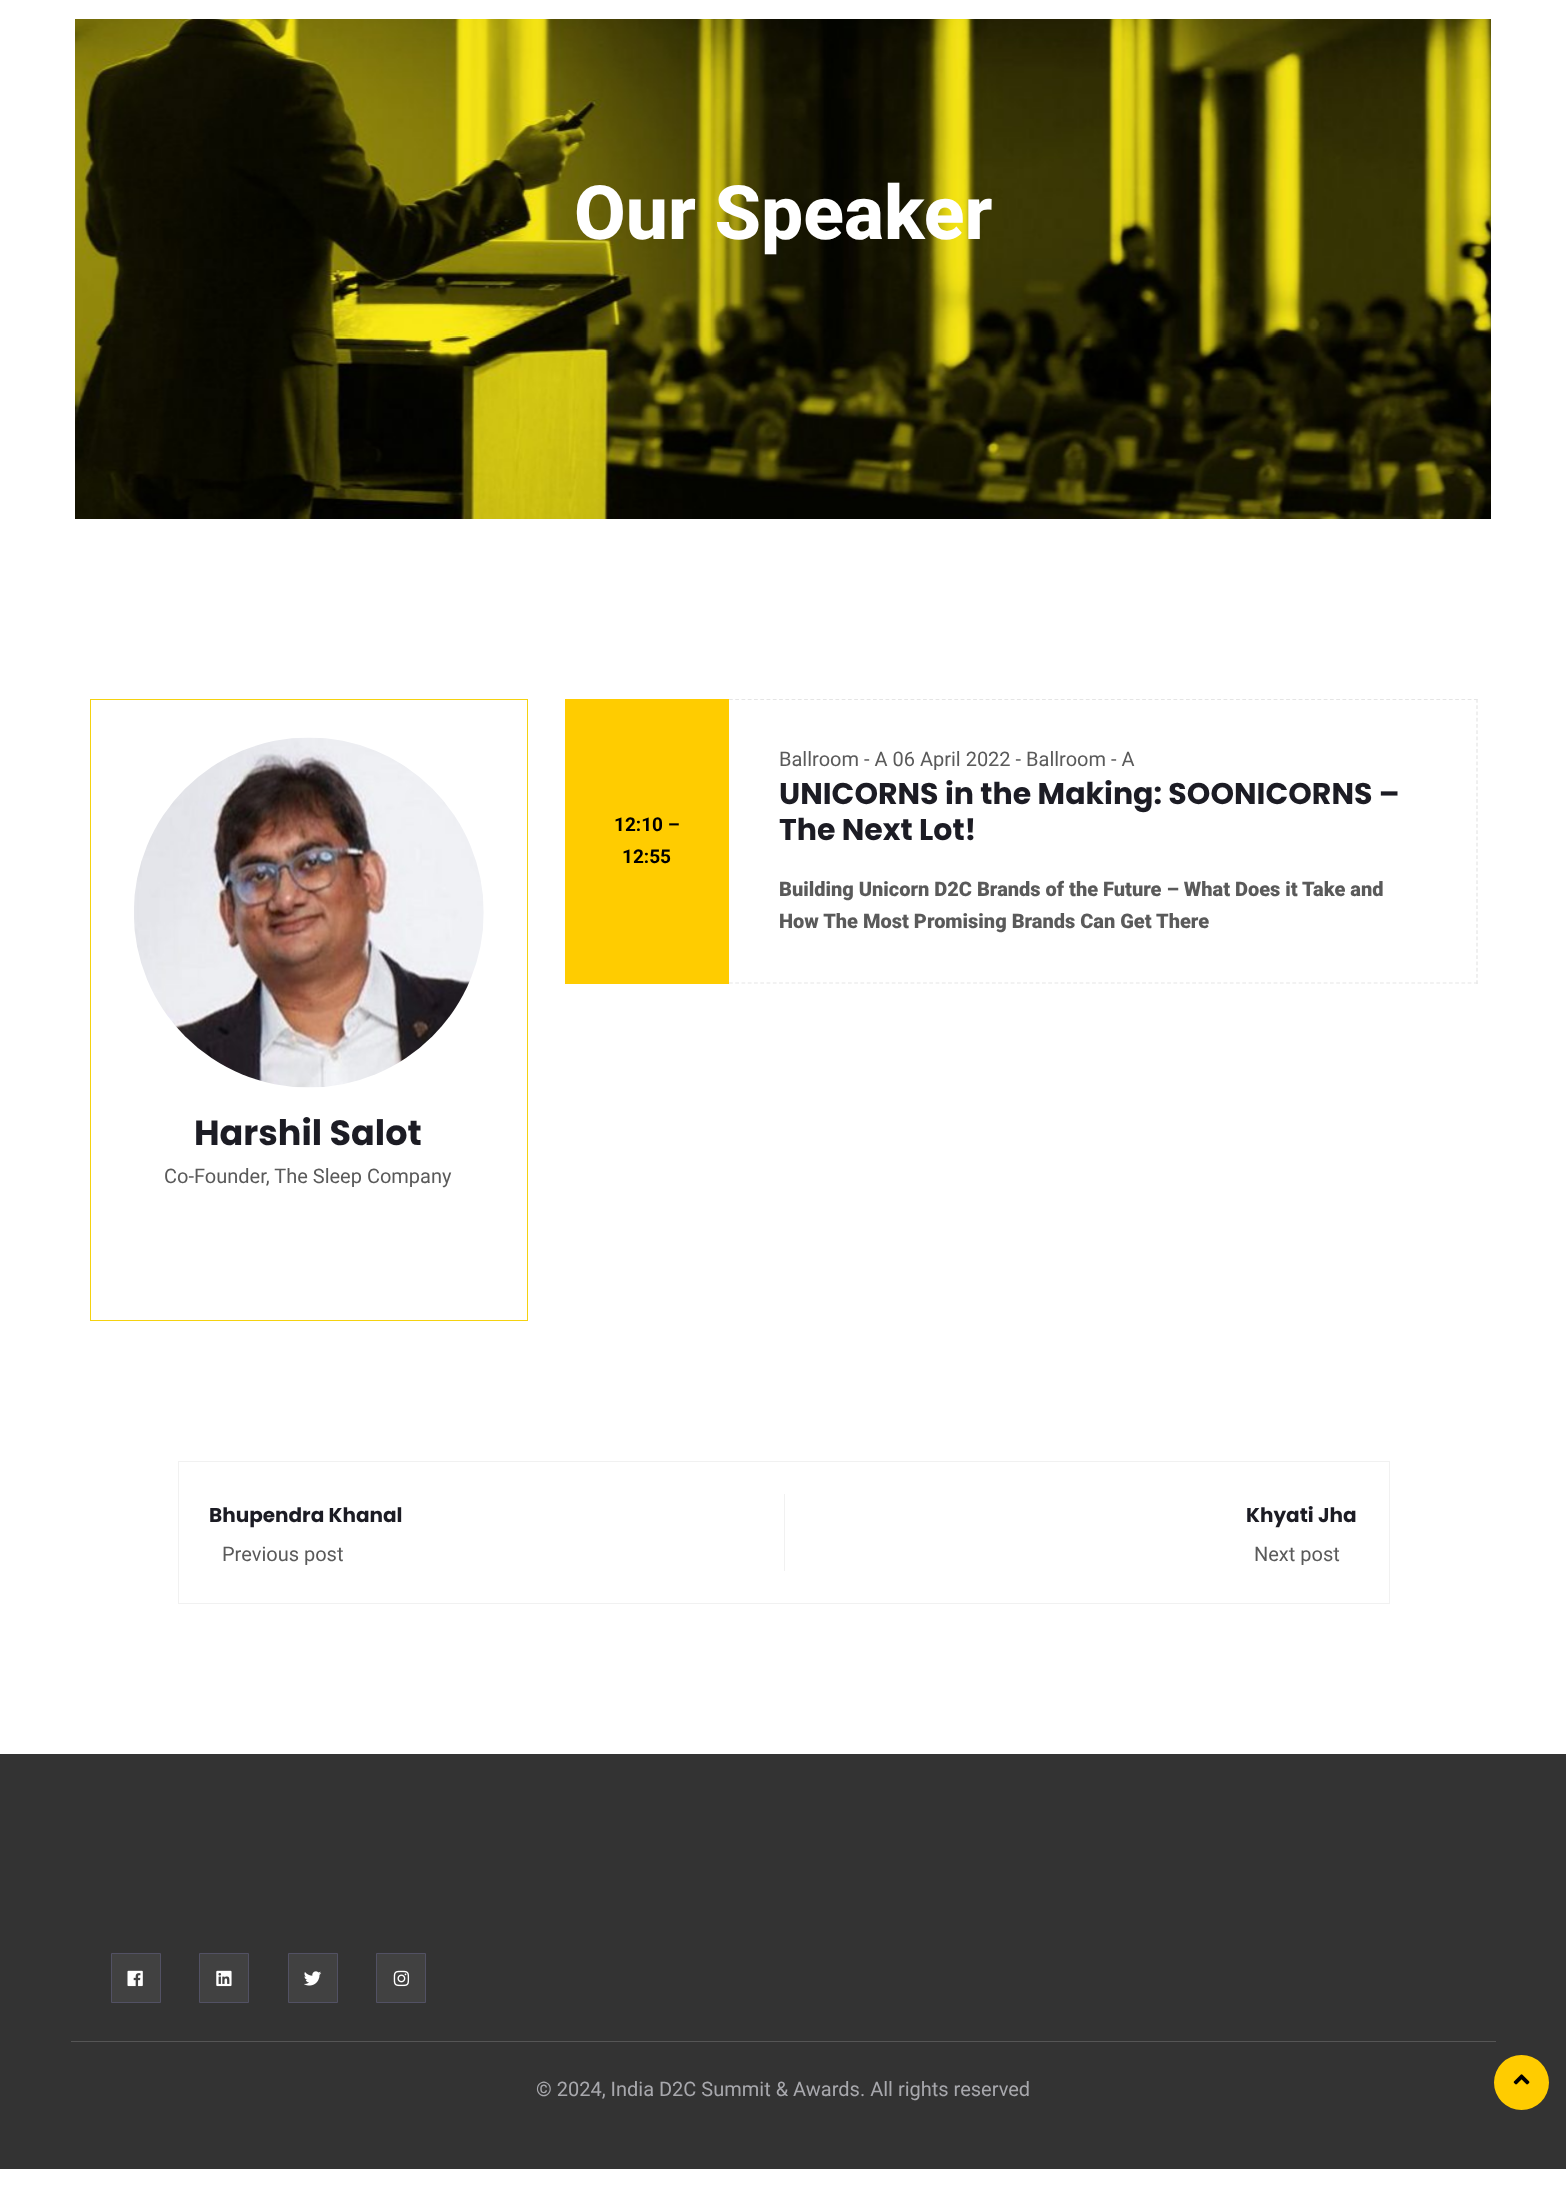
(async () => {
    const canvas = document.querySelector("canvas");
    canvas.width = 1566;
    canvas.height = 2203;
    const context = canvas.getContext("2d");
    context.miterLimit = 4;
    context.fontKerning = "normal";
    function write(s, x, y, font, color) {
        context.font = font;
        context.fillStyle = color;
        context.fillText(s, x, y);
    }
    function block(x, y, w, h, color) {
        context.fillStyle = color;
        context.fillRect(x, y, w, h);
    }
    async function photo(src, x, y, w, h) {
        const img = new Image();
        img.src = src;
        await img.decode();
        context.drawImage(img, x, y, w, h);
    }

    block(0, 0, 1566, 2203, "rgb(255, 255, 255)");
    await photo("media/1.png", 75, 19, 1416, 500);
    write("Our Speaker", 574, 239, "800 75px Roboto", "rgb(255, 255, 255)");
    block(565, 699, 164, 285, "rgb(255, 204, 0)");
    write("12:10 –", 614, 831, "bold 19px Roboto", "rgb(0, 0, 0)");
    write("12:55", 622, 863, "bold 19px Roboto", "rgb(0, 0, 0)");
    context.beginPath();
    context.moveTo(729, 699.5);
    context.lineTo(1477.5, 699.5);
    context.strokeStyle = "rgb(229, 229, 229)";
    context.lineWidth = 1.2;
    context.setLineDash([3.75, 2.51]);
    context.stroke();
    context.beginPath();
    context.moveTo(1477, 699);
    context.lineTo(1477, 984);
    context.setLineDash([3.75, 2.5]);
    context.stroke();
    context.beginPath();
    context.moveTo(729, 983);
    context.lineTo(1477.5, 983);
    context.setLineDash([3.75, 2.51]);
    context.stroke();
    write("Ballroom - A 06 April 2022 - Ballroom - A", 779, 766, "20px Roboto", "rgb(90, 90, 90)");
    write("UNICORNS in the Making: SOONICORNS –", 779, 804, "bold 30px Poppins", "rgb(28, 28, 36)");
    write("The Next Lot!", 779, 840, "bold 30px Poppins", "rgb(28, 28, 36)");
    write("Building Unicorn D2C Brands of the Future – What Does it Take and", 779, 896, "900 20px Roboto", "rgb(90, 90, 90)");
    write("How The Most Promising Brands Can Get There", 779, 928, "900 20px Roboto", "rgb(90, 90, 90)");
    context.strokeStyle = "rgb(245, 210, 16)";
    context.lineWidth = 1;
    context.setLineDash([]);
    context.strokeRect(90.5, 699.5, 437, 621);
    await photo("media/2.png", 134, 737, 350, 351);
    write("Harshil Salot", 194, 1145, "bold 35px Poppins", "rgb(28, 28, 36)");
    write("Co-Founder, The Sleep Company", 164, 1183, "20px Roboto", "rgb(90, 90, 90)");
    context.strokeStyle = "rgb(241, 241, 241)";
    context.strokeRect(178.5, 1461.5, 1211, 142);
    write("Bhupendra Khanal", 209, 1522, "bold 20px Poppins", "rgb(28, 28, 36)");
    write("Previous post", 222, 1561, "20px Roboto", "rgb(90, 90, 90)");
    block(784, 1494, 1, 77, "rgb(241, 241, 241)");
    write("Khyati Jha", 1246, 1522, "bold 20px Poppins", "rgb(28, 28, 36)");
    write("Next post", 1254, 1561, "20px Roboto", "rgb(90, 90, 90)");
    block(0, 1754, 1566, 415, "rgb(51, 51, 51)");
    context.fillStyle = "rgb(65, 65, 65)";
    context.beginPath();
    context.rect(111.5, 1953.5, 49, 49);
    context.fill();
    context.strokeStyle = "rgb(82, 81, 100)";
    context.stroke();
    await photo("media/3.png", 127, 1970, 16, 17);
    context.beginPath();
    context.rect(199.5, 1953.5, 49, 49);
    context.fill();
    context.stroke();
    await photo("media/4.png", 216, 1970, 16, 17);
    context.beginPath();
    context.rect(288.5, 1953.5, 49, 49);
    context.fill();
    context.stroke();
    await photo("media/5.png", 304, 1971, 18, 15);
    context.beginPath();
    context.rect(376.5, 1953.5, 49, 49);
    context.fill();
    context.stroke();
    await photo("media/6.png", 393, 1970, 17, 17);
    block(71, 2041, 1425, 1, "rgb(85, 85, 85)");
    write("© 2024, India D2C Summit & Awards. All rights reserved", 536, 2096, "20px Roboto", "rgb(168, 168, 173)");
    context.fillStyle = "rgb(255, 204, 0)";
    context.beginPath();
    context.arc(1521.5, 2082.5, 27.5, 0, Math.PI * 2);
    context.fill();
    await photo("media/7.png", 1513, 2074, 17, 11);
})();
